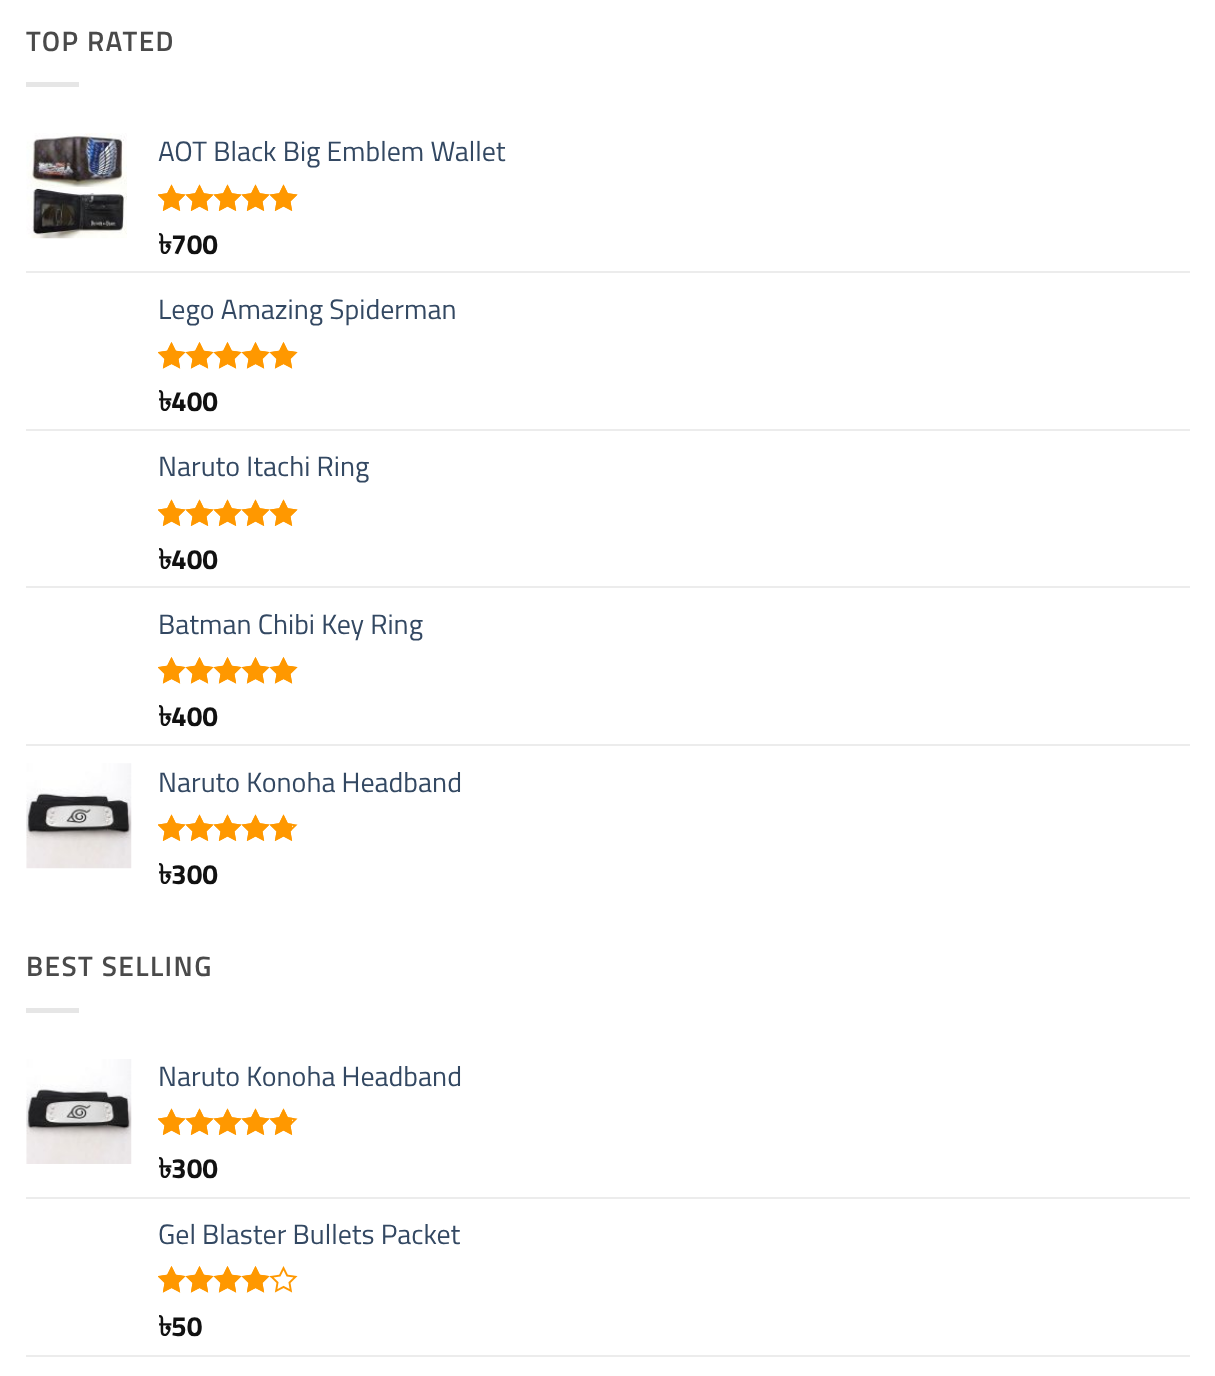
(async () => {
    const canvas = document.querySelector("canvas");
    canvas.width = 1215;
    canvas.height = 1376;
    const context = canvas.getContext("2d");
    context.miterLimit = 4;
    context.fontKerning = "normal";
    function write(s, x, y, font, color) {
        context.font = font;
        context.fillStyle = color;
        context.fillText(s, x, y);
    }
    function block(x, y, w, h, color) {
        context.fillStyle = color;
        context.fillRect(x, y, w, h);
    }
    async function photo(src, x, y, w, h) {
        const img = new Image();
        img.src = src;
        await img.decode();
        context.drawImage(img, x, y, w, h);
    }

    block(0, 0, 1215, 1376, "rgb(255, 255, 255)");
    context.letterSpacing = "1.4px";
    write("TOP RATED", 26, 51, "600 28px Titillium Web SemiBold", "rgb(74, 74, 74)");
    block(26, 82, 53, 5, "rgb(230, 230, 230)");
    await photo("media/1.png", 26, 133, 101, 106);
    context.letterSpacing = "0px";
    write("AOT Black Big Emblem Wallet", 158, 161, "28px Titillium Web", "rgb(51, 72, 98)");
    await photo("media/2.png", 158, 184, 140, 27);
    await photo("media/3.png", 158, 184, 140, 27);
    write("৳", 158, 254, "bold 28px Lohit Bengali", "rgb(17, 17, 17)");
    write("700", 171, 254, "bold 28px Titillium Web", "rgb(17, 17, 17)");
    block(26, 271, 1164, 2, "rgb(236, 236, 236)");
    write("Lego Amazing Spiderman", 158, 319, "28px Titillium Web", "rgb(51, 72, 98)");
    await photo("media/4.png", 158, 342, 140, 27);
    await photo("media/5.png", 158, 342, 140, 27);
    write("৳", 158, 411, "bold 28px Lohit Bengali", "rgb(17, 17, 17)");
    write("400", 171, 411, "bold 28px Titillium Web", "rgb(17, 17, 17)");
    block(26, 429, 1164, 2, "rgb(236, 236, 236)");
    write("Naruto Itachi Ring", 158, 476, "28px Titillium Web", "rgb(51, 72, 98)");
    await photo("media/2.png", 158, 499, 140, 27);
    await photo("media/3.png", 158, 499, 140, 27);
    write("৳", 158, 569, "bold 28px Lohit Bengali", "rgb(17, 17, 17)");
    write("400", 171, 569, "bold 28px Titillium Web", "rgb(17, 17, 17)");
    block(26, 586, 1164, 2, "rgb(236, 236, 236)");
    write("Batman Chibi Key Ring", 158, 634, "28px Titillium Web", "rgb(51, 72, 98)");
    await photo("media/4.png", 158, 657, 140, 27);
    await photo("media/5.png", 158, 657, 140, 27);
    write("৳", 158, 726, "bold 28px Lohit Bengali", "rgb(17, 17, 17)");
    write("400", 171, 726, "bold 28px Titillium Web", "rgb(17, 17, 17)");
    block(26, 744, 1164, 2, "rgb(236, 236, 236)");
    await photo("media/6.png", 26, 763, 106, 106);
    write("Naruto Konoha Headband", 158, 792, "28px Titillium Web", "rgb(51, 72, 98)");
    await photo("media/2.png", 158, 814, 140, 27);
    await photo("media/7.png", 158, 814, 134, 27);
    write("৳", 158, 884, "bold 28px Lohit Bengali", "rgb(17, 17, 17)");
    write("300", 171, 884, "bold 28px Titillium Web", "rgb(17, 17, 17)");
    context.letterSpacing = "1.4px";
    write("BEST SELLING", 26, 976, "600 28px Titillium Web SemiBold", "rgb(74, 74, 74)");
    block(26, 1008, 53, 5, "rgb(230, 230, 230)");
    await photo("media/8.png", 26, 1059, 106, 105);
    context.letterSpacing = "0px";
    write("Naruto Konoha Headband", 158, 1086, "28px Titillium Web", "rgb(51, 72, 98)");
    await photo("media/2.png", 158, 1108, 140, 27);
    await photo("media/7.png", 158, 1108, 134, 27);
    write("৳", 158, 1178, "bold 28px Lohit Bengali", "rgb(17, 17, 17)");
    write("300", 171, 1178, "bold 28px Titillium Web", "rgb(17, 17, 17)");
    block(26, 1197, 1164, 2, "rgb(236, 236, 236)");
    write("Gel Blaster Bullets Packet", 158, 1244, "28px Titillium Web", "rgb(51, 72, 98)");
    await photo("media/4.png", 158, 1266, 140, 27);
    await photo("media/9.png", 158, 1266, 113, 27);
    write("৳", 158, 1336, "bold 28px Lohit Bengali", "rgb(17, 17, 17)");
    write("50", 171, 1336, "bold 28px Titillium Web", "rgb(17, 17, 17)");
    block(26, 1355, 1164, 2, "rgb(236, 236, 236)");
})();
